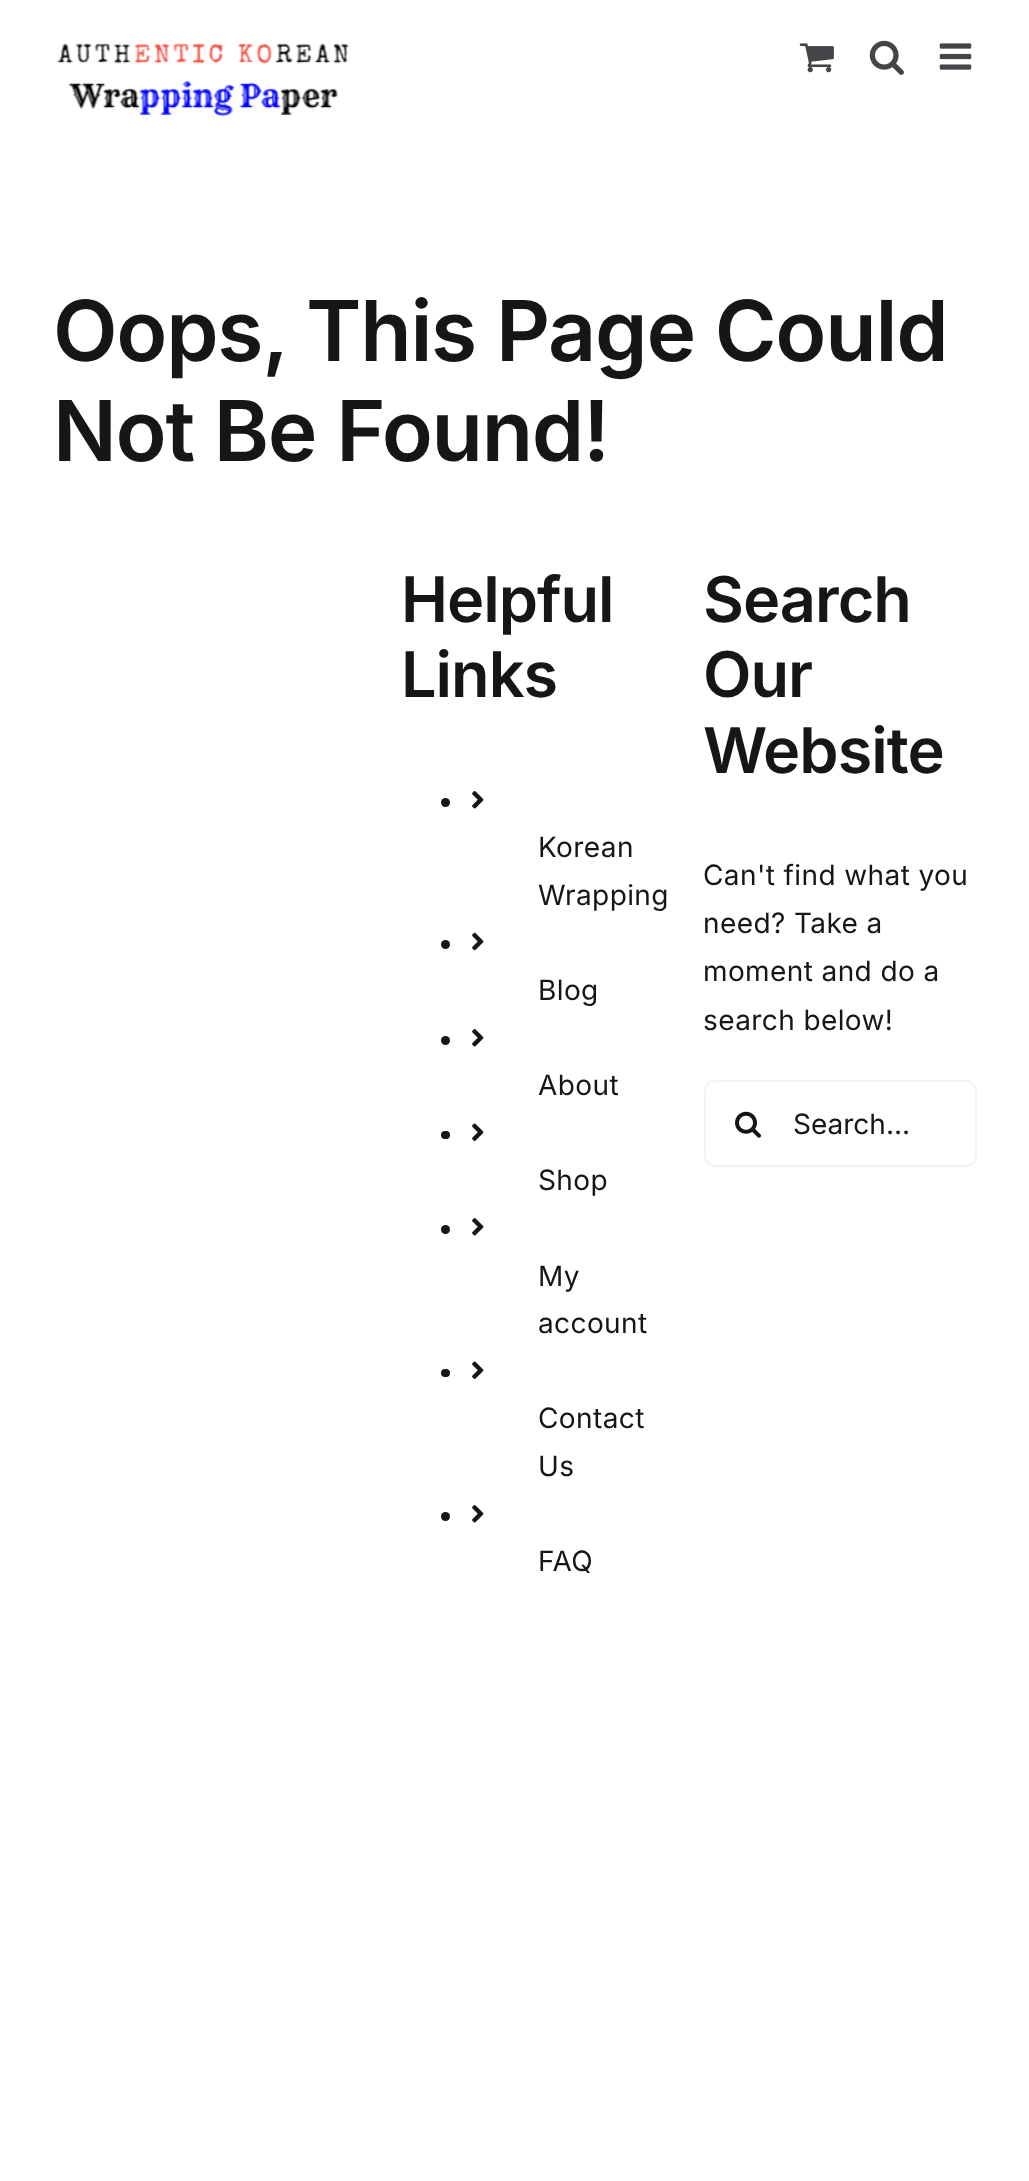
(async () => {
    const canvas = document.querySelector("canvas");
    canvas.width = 1029;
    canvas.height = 2181;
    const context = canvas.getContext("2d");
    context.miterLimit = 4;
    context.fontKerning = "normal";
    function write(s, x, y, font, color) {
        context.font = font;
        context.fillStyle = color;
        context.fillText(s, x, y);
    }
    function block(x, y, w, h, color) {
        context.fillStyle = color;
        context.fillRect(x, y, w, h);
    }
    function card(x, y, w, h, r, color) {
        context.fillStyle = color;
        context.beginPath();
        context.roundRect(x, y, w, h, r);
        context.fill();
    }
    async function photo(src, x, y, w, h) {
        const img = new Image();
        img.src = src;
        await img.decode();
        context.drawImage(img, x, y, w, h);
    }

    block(0, 0, 1029, 2181, "rgb(255, 255, 255)");
    await photo("media/1.png", 57, 43, 293, 74);
    await photo("media/2.png", 799, 43, 35, 30);
    await photo("media/3.png", 869, 40, 35, 35);
    await photo("media/4.png", 939, 43, 33, 27);
    context.letterSpacing = "-1.25px";
    write("Oops, This Page Could", 53, 361, "600 84px Inter", "rgb(20, 22, 23)");
    write("Not Be Found!", 53, 461, "600 84px Inter", "rgb(20, 22, 23)");
    context.letterSpacing = "-1px";
    write("Helpful", 401, 622, "600 63px Inter", "rgb(20, 22, 23)");
    write("Links", 401, 697, "600 63px Inter", "rgb(20, 22, 23)");
    context.beginPath();
    context.arc(445.5, 802.5, 4.5, 0, Math.PI * 2);
    context.fill();
    await photo("media/5.png", 472, 791, 12, 18);
    context.letterSpacing = "0.4px";
    write("Korean", 538, 857, "28px Inter", "rgb(20, 22, 23)");
    write("Wrapping", 538, 905, "28px Inter", "rgb(20, 22, 23)");
    context.beginPath();
    context.arc(445.5, 944.5, 4.5, 0, Math.PI * 2);
    context.fill();
    await photo("media/6.png", 472, 932, 12, 19);
    write("Blog", 538, 1000, "28px Inter", "rgb(20, 22, 23)");
    context.beginPath();
    context.arc(445.5, 1040.5, 4.5, 0, Math.PI * 2);
    context.fill();
    await photo("media/5.png", 472, 1029, 12, 18);
    write("About", 538, 1095, "28px Inter", "rgb(20, 22, 23)");
    card(441, 1131, 9, 8, 4, "rgb(20, 22, 23)");
    await photo("media/7.png", 472, 1123, 12, 18);
    write("Shop", 538, 1190, "28px Inter", "rgb(20, 22, 23)");
    context.beginPath();
    context.arc(445.5, 1229.5, 4.5, 0, Math.PI * 2);
    context.fill();
    await photo("media/5.png", 472, 1218, 12, 18);
    write("My", 538, 1286, "28px Inter", "rgb(20, 22, 23)");
    write("account", 538, 1333, "28px Inter", "rgb(20, 22, 23)");
    card(441, 1369, 9, 8, 4, "rgb(20, 22, 23)");
    await photo("media/7.png", 472, 1361, 12, 18);
    write("Contact", 538, 1428, "28px Inter", "rgb(20, 22, 23)");
    write("Us", 538, 1476, "28px Inter", "rgb(20, 22, 23)");
    context.beginPath();
    context.arc(445.5, 1516.5, 4.5, 0, Math.PI * 2);
    context.fill();
    await photo("media/5.png", 472, 1505, 12, 18);
    write("FAQ", 538, 1571, "28px Inter", "rgb(20, 22, 23)");
    context.letterSpacing = "-1px";
    write("Search", 703, 622, "600 63px Inter", "rgb(20, 22, 23)");
    write("Our", 703, 697, "600 63px Inter", "rgb(20, 22, 23)");
    write("Website", 703, 773, "600 63px Inter", "rgb(20, 22, 23)");
    context.letterSpacing = "0.4px";
    write("Can't find what you", 703, 885, "28px Inter", "rgb(20, 22, 23)");
    write("need? Take a", 703, 933, "28px Inter", "rgb(20, 22, 23)");
    write("moment and do a", 703, 981, "28px Inter", "rgb(20, 22, 23)");
    write("search below!", 703, 1030, "28px Inter", "rgb(20, 22, 23)");
    context.beginPath();
    context.roundRect(705, 1081, 271, 85, 10);
    context.strokeStyle = "rgb(242, 243, 245)";
    context.lineWidth = 2;
    context.stroke();
    await photo("media/8.png", 735, 1111, 26, 27);
    context.letterSpacing = "0px";
    write("Search...", 793, 1134, "28px Inter", "rgb(20, 22, 23)");
})();
